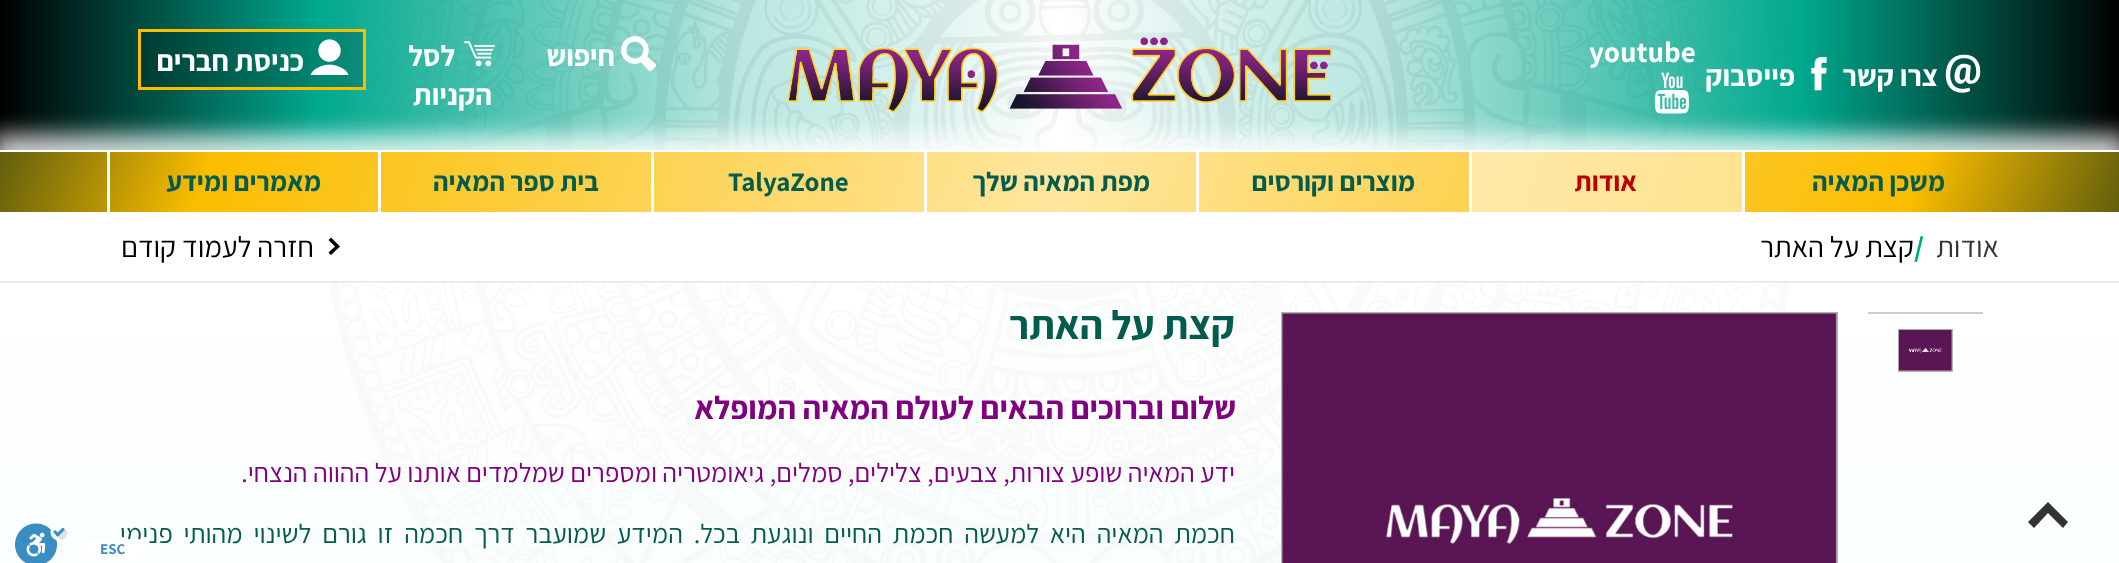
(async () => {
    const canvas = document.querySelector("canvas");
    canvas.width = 2119;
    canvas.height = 563;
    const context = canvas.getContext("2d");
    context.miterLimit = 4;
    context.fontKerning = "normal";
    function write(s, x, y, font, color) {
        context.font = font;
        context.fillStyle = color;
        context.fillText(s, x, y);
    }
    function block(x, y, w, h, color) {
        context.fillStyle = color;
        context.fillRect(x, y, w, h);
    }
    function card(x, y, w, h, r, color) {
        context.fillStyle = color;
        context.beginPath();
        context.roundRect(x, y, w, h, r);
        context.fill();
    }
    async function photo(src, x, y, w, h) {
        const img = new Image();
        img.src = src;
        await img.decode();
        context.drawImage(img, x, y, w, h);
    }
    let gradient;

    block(0, 0, 2119, 563, "rgb(255, 255, 255)");
    await photo("media/1.png", 321, 0, 1478, 563);
    gradient = context.createLinearGradient(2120, 75, 0, 75);
    gradient.addColorStop(0, "rgb(0, 0, 0)");
    gradient.addColorStop(0.15, "rgb(0, 168, 142)");
    gradient.addColorStop(0.35, "rgba(0, 168, 142, 0.27)");
    gradient.addColorStop(0.5, "rgba(255, 255, 255, 0.36)");
    gradient.addColorStop(0.65, "rgba(0, 168, 142, 0.27)");
    gradient.addColorStop(0.85, "rgb(0, 168, 142)");
    gradient.addColorStop(1, "rgb(0, 0, 0)");
    context.fillStyle = gradient;
    context.fillRect(0, 0, 2119, 150);
    write("youtube", 1589, 62, "bold 29.25px Assistant", "rgb(255, 255, 255)");
    await photo("media/2.png", 1654, 72, 35, 42);
    await photo("media/3.png", 1945, 54, 36, 39);
    context.direction = "rtl";
    write("צרו קשר", 1938, 86, "bold 29.25px Assistant", "rgb(255, 255, 255)");
    await photo("media/4.png", 1811, 57, 16, 34);
    write("פייסבוק", 1795, 86, "bold 29.25px Assistant", "rgb(255, 255, 255)");
    await photo("media/5.png", 787, 37, 545, 76);
    await photo("media/6.png", 621, 36, 35, 36);
    write("חיפוש", 615, 66, "bold 29.25px Assistant", "rgb(255, 255, 255)");
    await photo("media/7.png", 464, 41, 31, 26);
    write("לסל", 455, 66, "bold 29.25px Assistant", "rgb(255, 255, 255)");
    write("הקניות", 492, 105, "bold 29.25px Assistant", "rgb(255, 255, 255)");
    context.fillStyle = "rgba(0, 0, 0, 0.2)";
    context.beginPath();
    context.rect(139.5, 30.5, 225, 58);
    context.fill();
    context.strokeStyle = "rgb(251, 189, 0)";
    context.lineWidth = 3;
    context.stroke();
    await photo("media/8.png", 310, 39, 39, 36);
    write("כניסת חברים", 304, 71, "bold 29.25px Assistant", "rgb(255, 255, 255)");
    block(321, 212, 1478, 69, "rgb(255, 255, 255)");
    context.fillStyle = "rgb(0, 0, 0)";
    context.beginPath();
    context.moveTo(331, 255);
    context.lineTo(340, 246.5);
    context.lineTo(331, 237.5);
    context.lineTo(328.5, 240);
    context.lineTo(335, 246.5);
    context.lineTo(328.5, 252.5);
    context.closePath();
    context.fill();
    context.fillStyle = "rgba(255, 255, 255, 0.8)";
    context.filter = "blur(11px)";
    context.beginPath();
    context.rect(-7, 135, 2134, 77);
    context.fill();
    context.filter = "none";
    gradient = context.createLinearGradient(2005, 526, 114, -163);
    gradient.addColorStop(0, "rgb(97, 94, 12)");
    gradient.addColorStop(0.1, "rgb(251, 189, 0)");
    gradient.addColorStop(0.5, "rgb(254, 230, 158)");
    gradient.addColorStop(0.9, "rgb(251, 189, 0)");
    gradient.addColorStop(1, "rgb(97, 94, 12)");
    context.fillStyle = gradient;
    context.fillRect(0, 152, 2119, 60);
    block(321, 150, 1478, 2, "rgb(255, 255, 255)");
    block(1742, 152, 3, 60, "rgb(255, 255, 255)");
    write("משכן המאיה", 1945, 191, "bold 27px Assistant", "rgb(4, 92, 78)");
    block(1472, 152, 270, 60, "rgba(255, 255, 255, 0.5)");
    block(1469, 152, 3, 60, "rgb(255, 255, 255)");
    write("אודות", 1637, 191, "bold 27px Assistant", "rgb(187, 0, 0)");
    block(1196, 152, 3, 60, "rgb(255, 255, 255)");
    write("מוצרים וקורסים", 1415, 191, "bold 27px Assistant", "rgb(4, 92, 78)");
    block(924, 152, 3, 60, "rgb(255, 255, 255)");
    write("מפת המאיה שלך", 1150, 191, "bold 27px Assistant", "rgb(4, 92, 78)");
    block(651, 152, 3, 60, "rgb(255, 255, 255)");
    context.direction = "ltr";
    write("TalyaZone", 728, 191, "bold 27px Assistant", "rgb(4, 92, 78)");
    block(378, 152, 3, 60, "rgb(255, 255, 255)");
    context.direction = "rtl";
    write("בית ספר המאיה", 599, 191, "bold 27px Assistant", "rgb(4, 92, 78)");
    block(107, 152, 3, 60, "rgb(255, 255, 255)");
    write("מאמרים ומידע", 321, 191, "bold 27px Assistant", "rgb(4, 92, 78)");
    gradient = context.createLinearGradient(1060, 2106, 1060, 212);
    gradient.addColorStop(0, "rgba(132, 232, 216, 0.55)");
    gradient.addColorStop(1, "rgba(255, 255, 255, 0.46)");
    context.fillStyle = gradient;
    context.fillRect(0, 283, 2119, 280);
    block(0, 281, 2119, 2, "rgb(229, 229, 229)");
    block(0, 282, 2119, 281, "rgba(255, 255, 255, 0.5)");
    context.fillStyle = "rgb(50, 51, 51)";
    context.beginPath();
    context.moveTo(2034, 528);
    context.lineTo(2048, 513);
    context.lineTo(2063, 528);
    context.lineTo(2068, 522);
    context.lineTo(2048, 502);
    context.lineTo(2028, 522);
    context.closePath();
    context.fill();
    write("אודות", 1999, 257, "29.25px Assistant", "rgb(51, 51, 51)");
    context.direction = "ltr";
    write("/", 1914, 257, "bold 29.25px Assistant", "rgb(0, 168, 142)");
    context.direction = "rtl";
    write("קצת על האתר", 1914, 257, "29.25px Assistant", "rgb(0, 0, 0)");
    write("חזרה לעמוד קודם", 314, 257, "29.25px Assistant", "rgb(0, 0, 0)");
    block(1868, 312, 115, 2, "rgb(204, 204, 204)");
    context.strokeStyle = "rgb(178, 178, 178)";
    context.lineWidth = 2;
    context.strokeRect(1899, 330, 53, 41);
    await photo("media/9.png", 1898, 329, 54, 42);
    context.strokeRect(1282, 313, 555, 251);
    await photo("media/10.png", 1282, 313, 555, 250);
    write("קצת על האתר", 1235, 339, "bold 40.5px Assistant", "rgb(4, 92, 78)");
    write("שלום וברוכים הבאים לעולם המאיה המופלא", 1236, 419, "bold 32.4px Assistant", "rgb(128, 0, 128)");
    write("ידע המאיה שופע צורות, צבעים, צלילים, סמלים, גיאומטריה ומספרים שמלמדים אותנו על ההווה הנצחי.", 1235, 482, "27px Assistant", "rgb(128, 0, 128)");
    context.wordSpacing = "5.4px";
    write("חכמת המאיה היא למעשה חכמת החיים ונוגעת בכל. המידע שמועבר דרך חכמה זו גורם לשינוי מהותי פנימי", 1235, 543, "27px Assistant", "rgb(4, 92, 78)");
    card(81, 539, 63, 21, 6, "rgb(255, 255, 255)");
    context.wordSpacing = "0px";
    context.direction = "ltr";
    write("ESC", 100, 554, "bold 15px Assistant", "rgb(58, 141, 194)");
    await photo("media/11.png", 15, 523, 53, 40);
})();
